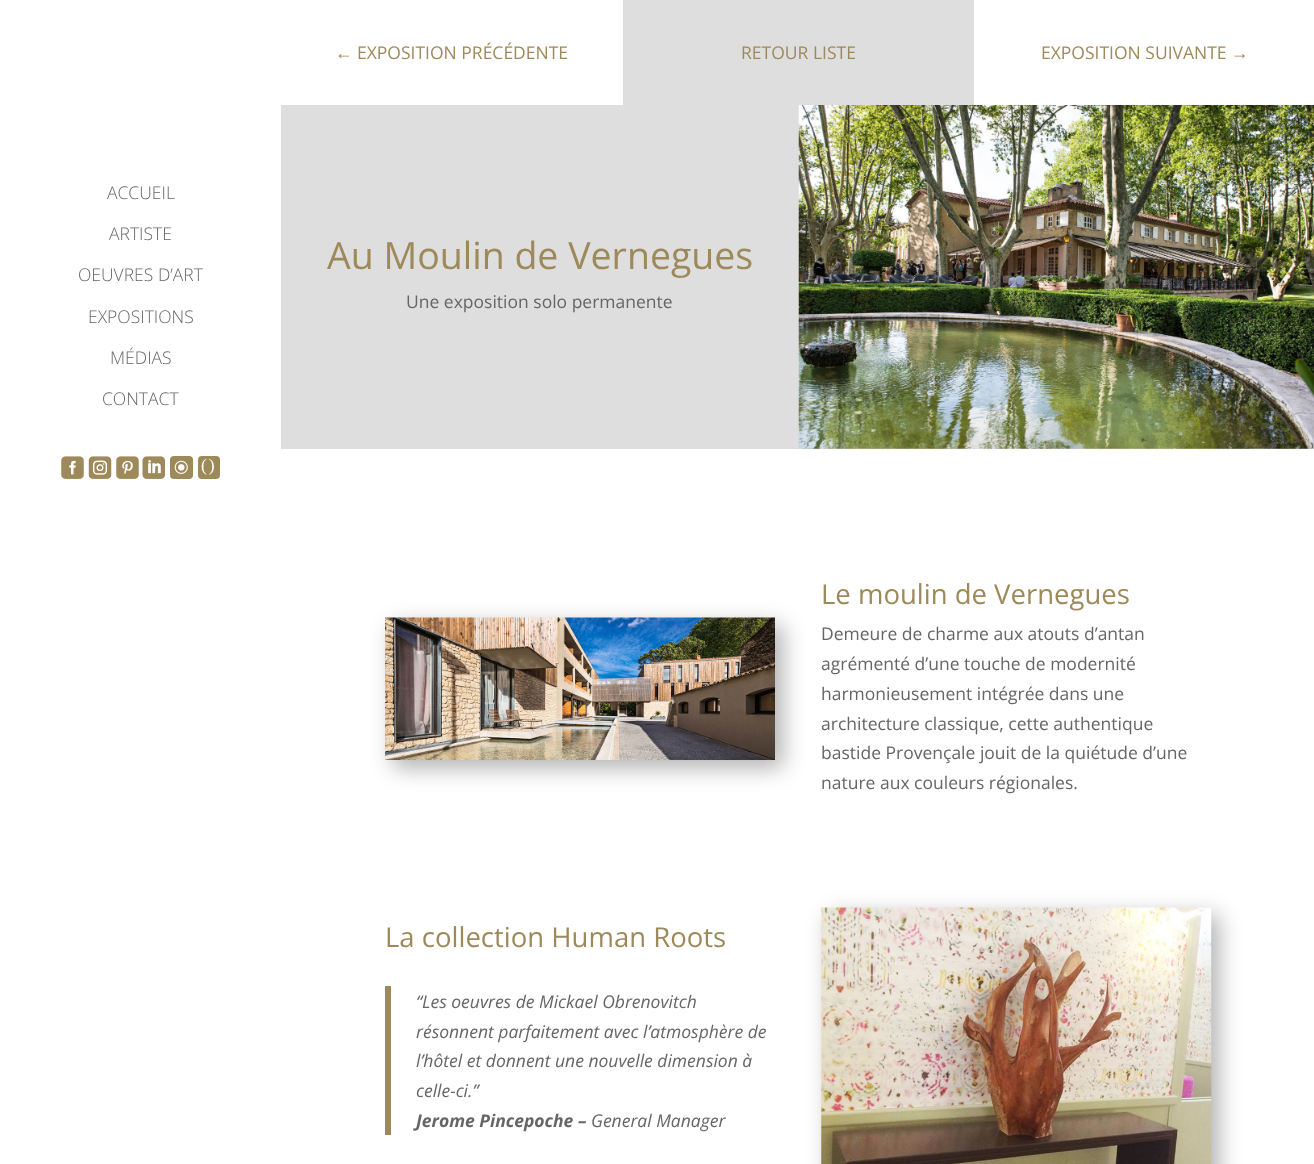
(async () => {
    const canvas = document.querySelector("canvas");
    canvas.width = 1314;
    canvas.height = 1164;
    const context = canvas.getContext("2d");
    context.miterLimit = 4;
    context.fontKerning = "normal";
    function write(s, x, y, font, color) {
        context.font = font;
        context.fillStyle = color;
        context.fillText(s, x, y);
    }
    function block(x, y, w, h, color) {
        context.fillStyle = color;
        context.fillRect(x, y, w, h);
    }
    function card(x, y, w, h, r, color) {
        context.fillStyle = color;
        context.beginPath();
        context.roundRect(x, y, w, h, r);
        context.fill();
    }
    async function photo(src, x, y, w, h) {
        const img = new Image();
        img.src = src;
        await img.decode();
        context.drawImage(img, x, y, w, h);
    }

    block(0, 0, 1314, 1164, "rgb(255, 255, 255)");
    write("ACCUEIL", 107, 199, "300 17.5px Open Sans", "rgb(102, 102, 102)");
    write("ARTISTE", 109, 240, "300 17.5px Open Sans", "rgb(102, 102, 102)");
    write("OEUVRES D’ART", 78, 281, "300 17.5px Open Sans", "rgb(102, 102, 102)");
    write("EXPOSITIONS", 88, 323, "300 17.5px Open Sans", "rgb(102, 102, 102)");
    write("MÉDIAS", 110, 364, "300 17.5px Open Sans", "rgb(102, 102, 102)");
    write("CONTACT", 102, 405, "300 17.5px Open Sans", "rgb(102, 102, 102)");
    await photo("media/1.png", 61, 456, 23, 23);
    await photo("media/2.png", 88, 456, 24, 23);
    await photo("media/3.png", 116, 456, 23, 23);
    await photo("media/4.png", 142, 456, 23, 23);
    card(170, 456, 23, 23, 4, "rgb(158, 137, 90)");
    await photo("media/5.png", 174, 460, 14, 14);
    card(198, 456, 22, 23, 4, "rgb(158, 137, 90)");
    context.letterSpacing = "2px";
    write("()", 201, 471, "17.5px Liberation Serif", "rgb(255, 255, 255)");
    context.letterSpacing = "0px";
    write("←", 335, 59, "17.5px Liberation Sans", "rgb(158, 137, 90)");
    write("EXPOSITION PRÉCÉDENTE", 357, 59, "17.5px Open Sans", "rgb(158, 137, 90)");
    block(623, 0, 351, 105, "rgb(222, 222, 222)");
    write("RETOUR LISTE", 741, 59, "17.5px Open Sans", "rgb(158, 137, 90)");
    write("EXPOSITION SUIVANTE", 1041, 59, "17.5px Open Sans", "rgb(158, 137, 90)");
    write("→", 1231, 59, "17.5px Liberation Sans", "rgb(158, 137, 90)");
    block(281, 105, 1033, 344, "rgb(222, 222, 222)");
    write("Au Moulin de Vernegues", 327, 269, "37.5px Open Sans", "rgb(158, 137, 90)");
    write("Une exposition solo permanente", 406, 308, "17.5px Open Sans", "rgb(102, 102, 102)");
    await photo("media/6.png", 798, 105, 516, 344);
    context.fillStyle = "rgba(0, 0, 0, 0.3)";
    context.filter = "blur(11px)";
    context.beginPath();
    context.rect(393, 625, 390, 143);
    context.fill();
    context.filter = "none";
    await photo("media/7.png", 385, 617, 390, 143);
    write("Le moulin de Vernegues", 821, 604, "27.5px Open Sans", "rgb(158, 137, 90)");
    write("Demeure de charme aux atouts d’antan", 821, 640, "17.5px Open Sans", "rgb(102, 102, 102)");
    write("agrémenté d’une touche de modernité", 821, 670, "17.5px Open Sans", "rgb(102, 102, 102)");
    write("harmonieusement intégrée dans une", 821, 700, "17.5px Open Sans", "rgb(102, 102, 102)");
    write("architecture classique, cette authentique", 821, 730, "17.5px Open Sans", "rgb(102, 102, 102)");
    write("bastide Provençale jouit de la quiétude d’une", 821, 759, "17.5px Open Sans", "rgb(102, 102, 102)");
    write("nature aux couleurs régionales.", 821, 789, "17.5px Open Sans", "rgb(102, 102, 102)");
    write("La collection Human Roots", 385, 947, "27.5px Open Sans", "rgb(158, 137, 90)");
    block(385, 986, 6, 149, "rgb(158, 137, 90)");
    write("“Les oeuvres de Mickael Obrenovitch", 416, 1008, "italic 17.5px Open Sans", "rgb(102, 102, 102)");
    write("résonnent parfaitement avec l’atmosphère de", 416, 1038, "italic 17.5px Open Sans", "rgb(102, 102, 102)");
    write("l’hôtel et donnent une nouvelle dimension à", 416, 1067, "italic 17.5px Open Sans", "rgb(102, 102, 102)");
    write("celle-ci.”", 416, 1097, "italic 17.5px Open Sans", "rgb(102, 102, 102)");
    write("Jerome Pincepoche –", 416, 1127, "italic bold 17.5px Open Sans", "rgb(102, 102, 102)");
    write("General Manager", 591, 1127, "italic 17.5px Open Sans", "rgb(102, 102, 102)");
    context.fillStyle = "rgba(0, 0, 0, 0.3)";
    context.filter = "blur(11px)";
    context.beginPath();
    context.rect(829, 915, 390, 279);
    context.fill();
    context.filter = "none";
    await photo("media/8.png", 821, 907, 391, 257);
})();
